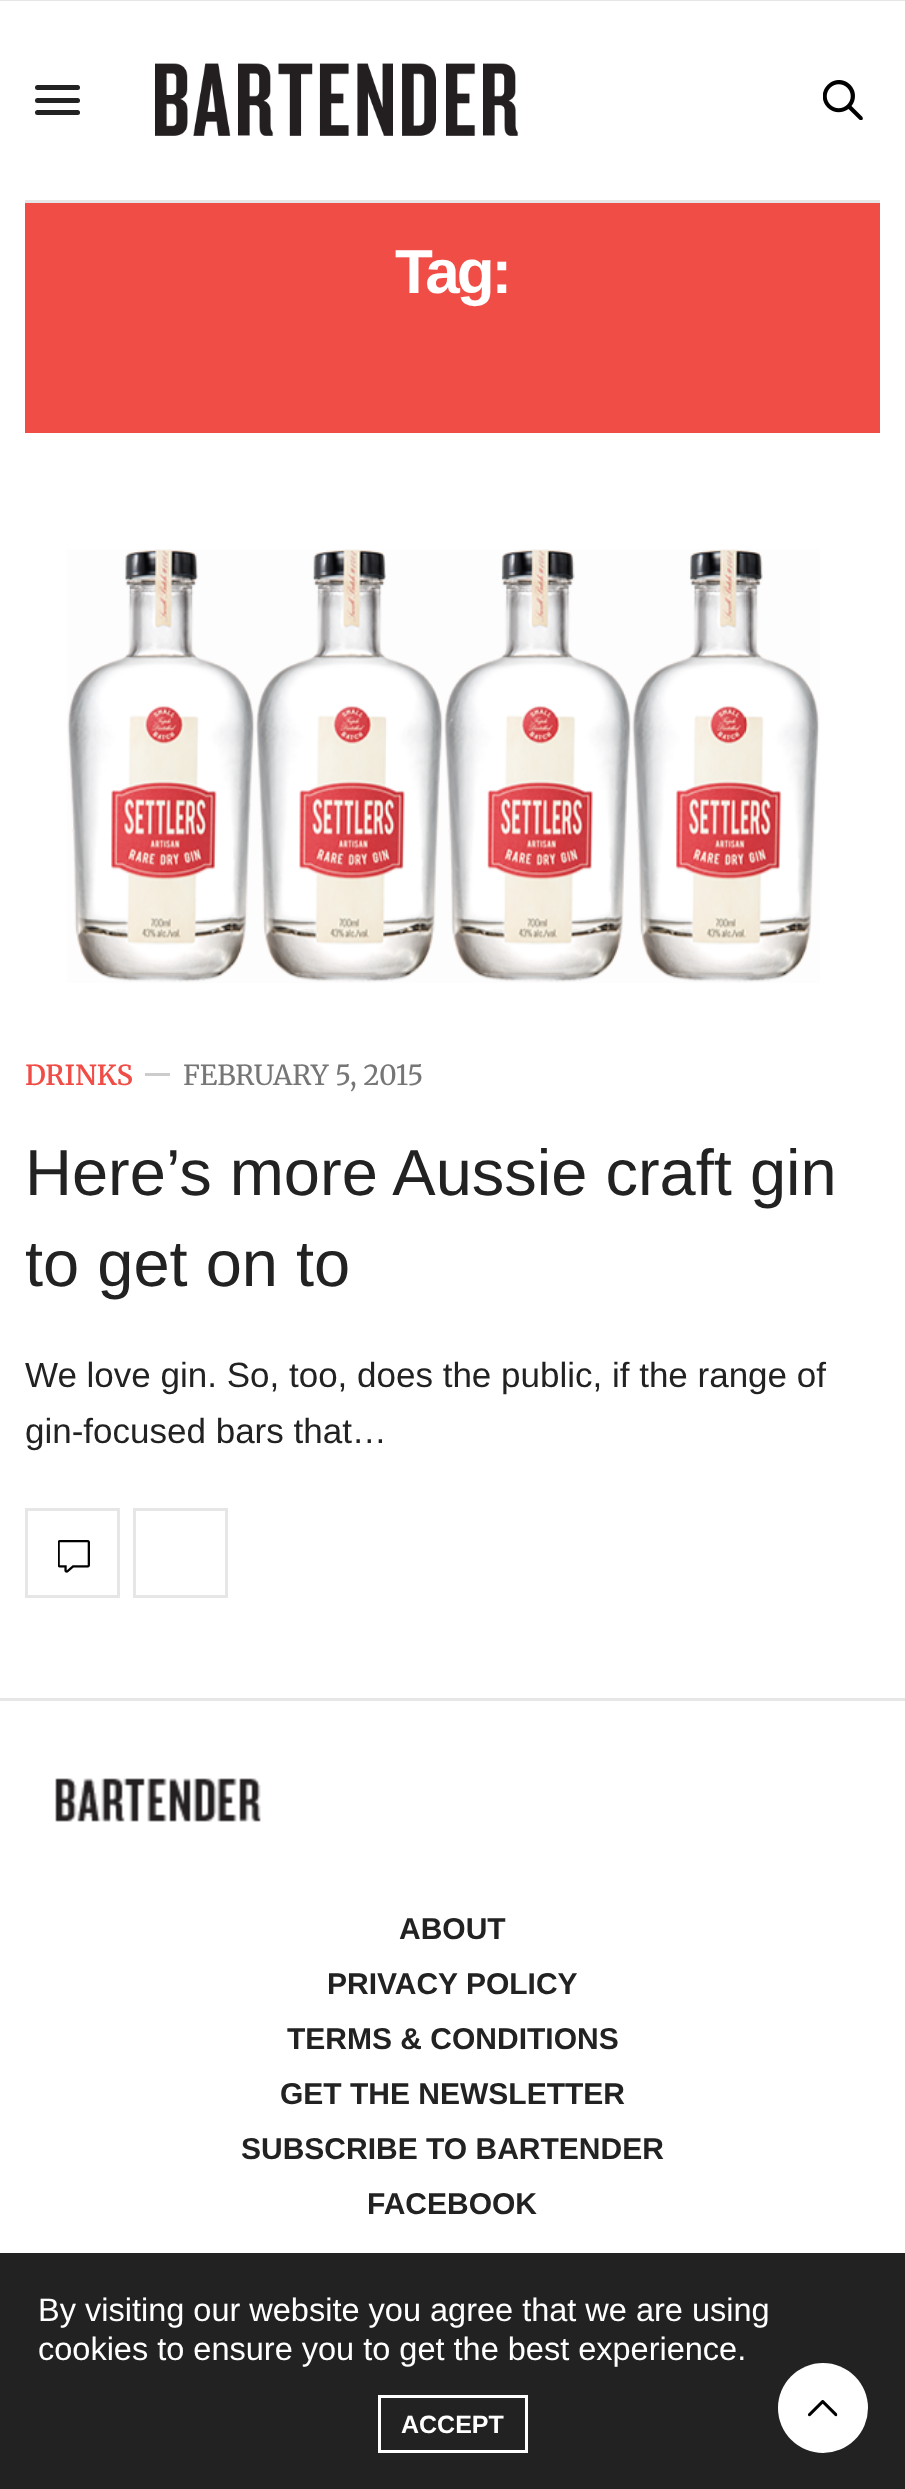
(async () => {
    const canvas = document.querySelector("canvas");
    canvas.width = 905;
    canvas.height = 2489;
    const context = canvas.getContext("2d");
    context.miterLimit = 4;
    context.fontKerning = "normal";
    function write(s, x, y, font, color) {
        context.font = font;
        context.fillStyle = color;
        context.fillText(s, x, y);
    }
    function block(x, y, w, h, color) {
        context.fillStyle = color;
        context.fillRect(x, y, w, h);
    }
    function card(x, y, w, h, r, color) {
        context.fillStyle = color;
        context.beginPath();
        context.roundRect(x, y, w, h, r);
        context.fill();
    }
    async function photo(src, x, y, w, h) {
        const img = new Image();
        img.src = src;
        await img.decode();
        context.drawImage(img, x, y, w, h);
    }

    block(0, 0, 905, 2489, "rgb(255, 255, 255)");
    block(0, 0, 905, 1, "rgb(230, 230, 230)");
    block(25, 200, 855, 3, "rgb(230, 230, 230)");
    card(35, 85, 45, 5, 2.5, "rgb(34, 34, 34)");
    card(35, 98, 45, 5, 2.5, "rgb(34, 34, 34)");
    card(35, 110, 45, 5, 2.5, "rgb(34, 34, 34)");
    await photo("media/1.png", 155, 63, 364, 73);
    await photo("media/2.png", 823, 80, 40, 40);
    block(25, 203, 855, 230, "rgb(240, 77, 70)");
    context.letterSpacing = "-3px";
    write("Tag:", 395, 293, "bold 62px Liberation Sans", "rgb(255, 255, 255)");
    await photo("media/3.png", 67, 549, 753, 434);
    context.letterSpacing = "0px";
    write("DRINKS", 25, 1085, "600 27.5px Merriweather", "rgb(240, 77, 70)");
    block(145, 1073, 25, 3, "rgb(204, 204, 204)");
    write("FEBRUARY 5, 2015", 183, 1085, "27.5px Merriweather", "rgb(118, 118, 118)");
    write("Here’s more Aussie craft gin", 25, 1195, "65px Liberation Sans", "rgb(34, 34, 34)");
    write("to get on to", 25, 1286, "65px Liberation Sans", "rgb(34, 34, 34)");
    write("We love gin. So, too, does the public, if the range of", 25, 1387, "35px Liberation Sans", "rgb(34, 34, 34)");
    write("gin-focused bars that…", 25, 1443, "35px Liberation Sans", "rgb(34, 34, 34)");
    context.strokeStyle = "rgb(230, 230, 230)";
    context.lineWidth = 3;
    context.strokeRect(26.5, 1509.5, 92, 87);
    await photo("media/4.png", 58, 1540, 32, 33);
    context.strokeRect(134.5, 1509.5, 92, 87);
    block(0, 1698, 905, 3, "rgb(230, 230, 230)");
    await photo("media/5.png", 55, 1778, 206, 44);
    write("ABOUT", 399, 1939, "bold 30px Liberation Sans", "rgb(34, 34, 34)");
    write("PRIVACY POLICY", 327, 1994, "bold 30px Liberation Sans", "rgb(34, 34, 34)");
    write("TERMS & CONDITIONS", 287, 2049, "bold 30px Liberation Sans", "rgb(34, 34, 34)");
    write("GET THE NEWSLETTER", 280, 2104, "bold 30px Liberation Sans", "rgb(34, 34, 34)");
    write("SUBSCRIBE TO BARTENDER", 241, 2159, "bold 30px Liberation Sans", "rgb(34, 34, 34)");
    write("FACEBOOK", 367, 2214, "bold 30px Liberation Sans", "rgb(34, 34, 34)");
    block(0, 2253, 905, 236, "rgb(34, 34, 34)");
    write("By visiting our website you agree that we are using", 38, 2321, "32.5px Liberation Sans", "rgb(255, 255, 255)");
    write("cookies to ensure you to get the best experience.", 38, 2360, "32.5px Liberation Sans", "rgb(255, 255, 255)");
    context.strokeStyle = "rgb(255, 255, 255)";
    context.strokeRect(379.5, 2396.5, 147, 55);
    write("ACCEPT", 401, 2433, "bold 25px Liberation Sans", "rgb(255, 255, 255)");
    context.beginPath();
    context.arc(823, 2408, 45, 0, Math.PI * 2);
    context.fill();
    await photo("media/6.png", 808, 2400, 30, 17);
})();
